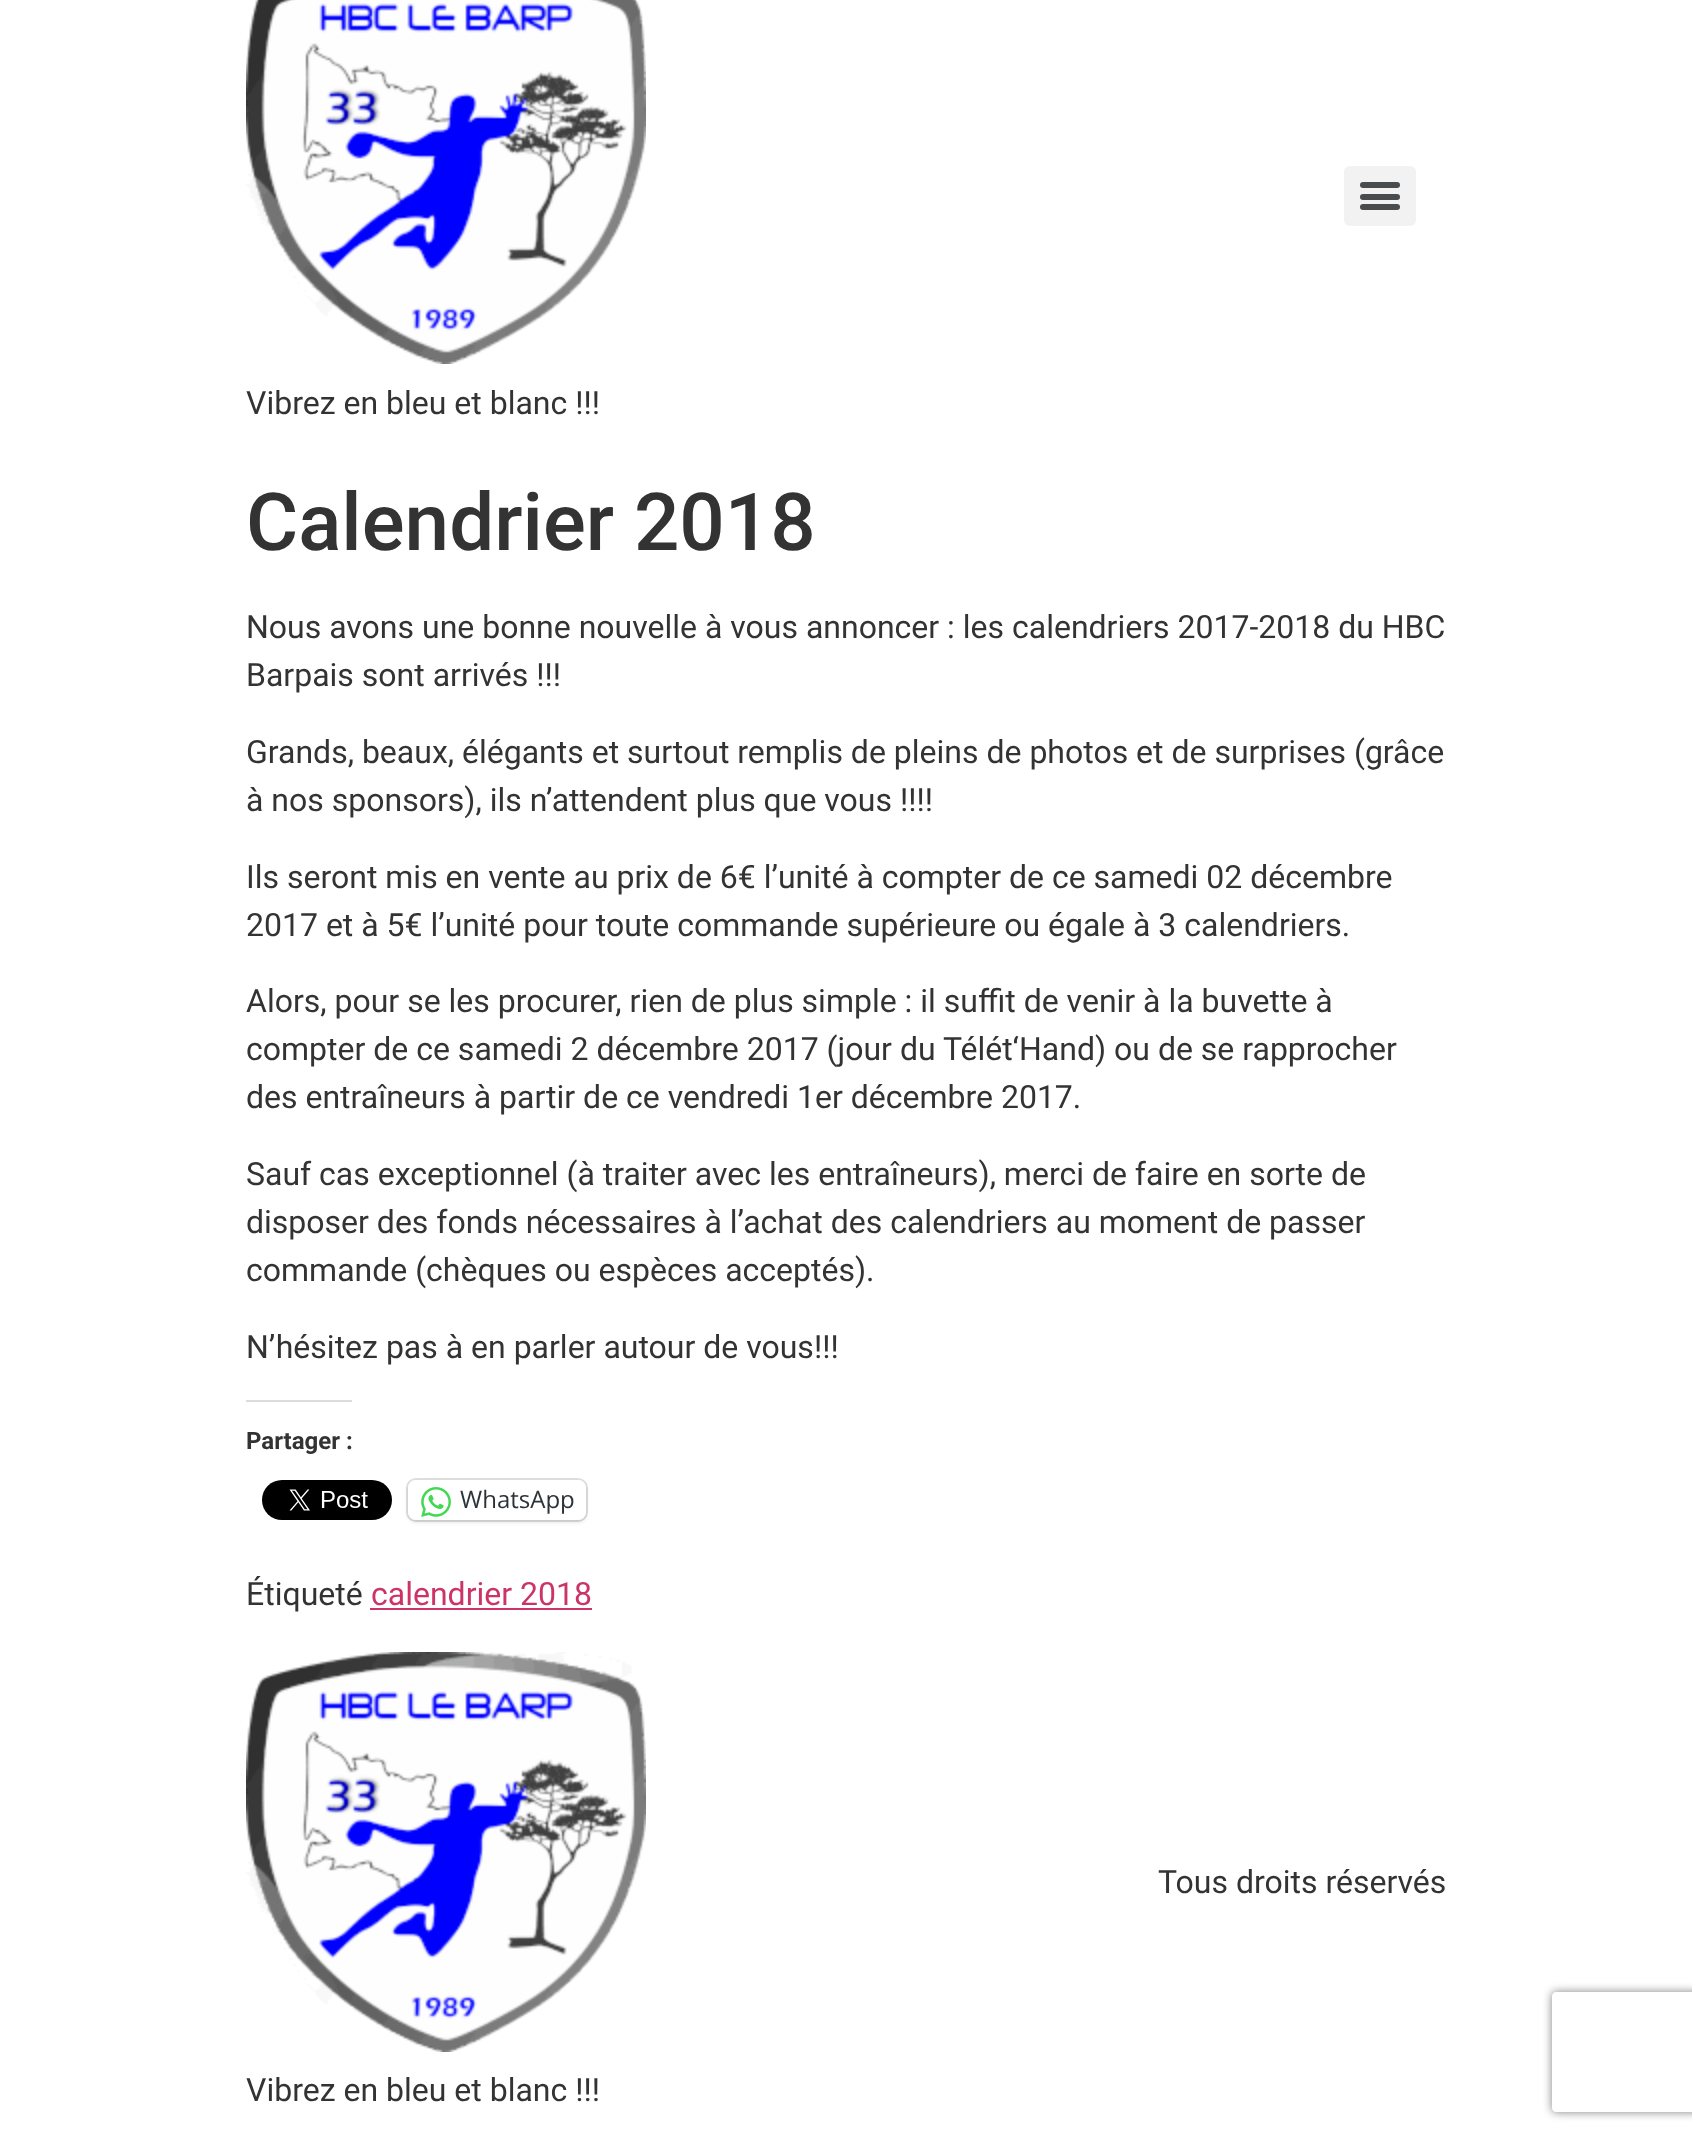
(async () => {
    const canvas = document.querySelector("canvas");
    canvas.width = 1692;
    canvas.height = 2140;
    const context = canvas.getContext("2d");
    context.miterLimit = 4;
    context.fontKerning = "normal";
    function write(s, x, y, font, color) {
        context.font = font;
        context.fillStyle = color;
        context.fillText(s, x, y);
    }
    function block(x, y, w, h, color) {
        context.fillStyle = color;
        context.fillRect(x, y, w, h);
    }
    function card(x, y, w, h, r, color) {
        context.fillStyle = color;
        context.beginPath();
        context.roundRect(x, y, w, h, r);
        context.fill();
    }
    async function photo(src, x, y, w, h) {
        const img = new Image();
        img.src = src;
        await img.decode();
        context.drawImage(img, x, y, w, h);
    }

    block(0, 0, 1692, 2140, "rgb(255, 255, 255)");
    card(1344, 166, 72, 60, 6, "rgb(242, 242, 242)");
    card(1360, 194, 40, 6, 3, "rgb(73, 76, 79)");
    card(1360, 182, 40, 6, 3, "rgb(73, 76, 79)");
    card(1360, 204, 40, 6, 3, "rgb(73, 76, 79)");
    await photo("media/1.png", 246, 0, 400, 364);
    write("Vibrez en bleu et blanc !!!", 246, 414, "32px Roboto", "rgb(51, 51, 51)");
    write("Calendrier 2018", 246, 550, "500 80px Roboto", "rgb(51, 51, 51)");
    write("Nous avons une bonne nouvelle à vous annoncer : les calendriers 2017-2018 du HBC", 246, 638, "32px Roboto", "rgb(51, 51, 51)");
    write("Barpais sont arrivés !!!", 246, 686, "32px Roboto", "rgb(51, 51, 51)");
    write("Grands, beaux, élégants et surtout remplis de pleins de photos et de surprises (grâce", 246, 763, "32px Roboto", "rgb(51, 51, 51)");
    write("à nos sponsors), ils n’attendent plus que vous !!!!", 246, 811, "32px Roboto", "rgb(51, 51, 51)");
    write("Ils seront mis en vente au prix de 6€ l’unité à compter de ce samedi 02 décembre", 246, 888, "32px Roboto", "rgb(51, 51, 51)");
    write("2017 et à 5€ l’unité pour toute commande supérieure ou égale à 3 calendriers.", 246, 936, "32px Roboto", "rgb(51, 51, 51)");
    write("Alors, pour se les procurer, rien de plus simple : il suffit de venir à la buvette à", 246, 1012, "32px Roboto", "rgb(51, 51, 51)");
    write("compter de ce samedi 2 décembre 2017 (jour du Télét‘Hand) ou de se rapprocher", 246, 1060, "32px Roboto", "rgb(51, 51, 51)");
    write("des entraîneurs à partir de ce vendredi 1er décembre 2017.", 246, 1108, "32px Roboto", "rgb(51, 51, 51)");
    write("Sauf cas exceptionnel (à traiter avec les entraîneurs), merci de faire en sorte de", 246, 1185, "32px Roboto", "rgb(51, 51, 51)");
    write("disposer des fonds nécessaires à l’achat des calendriers au moment de passer", 246, 1233, "32px Roboto", "rgb(51, 51, 51)");
    write("commande (chèques ou espèces acceptés).", 246, 1281, "32px Roboto", "rgb(51, 51, 51)");
    write("N’hésitez pas à en parler autour de vous!!!", 246, 1358, "32px Roboto", "rgb(51, 51, 51)");
    block(246, 1400, 106, 2, "rgb(220, 220, 222)");
    write("Partager :", 246, 1449, "bold 24px Roboto", "rgb(51, 51, 51)");
    await photo("media/2.png", 262, 1480, 130, 40);
    context.beginPath();
    context.roundRect(407, 1479, 180, 42, 9);
    context.strokeStyle = "rgb(224, 224, 224)";
    context.lineWidth = 2;
    context.stroke();
    context.fillStyle = "rgba(0, 0, 0, 0.12)";
    context.filter = "blur(2px)";
    context.beginPath();
    context.roundRect(408, 1482, 178, 40, 8);
    context.fill();
    context.filter = "none";
    card(408, 1480, 178, 40, 8, "rgb(255, 255, 255)");
    await photo("media/3.png", 421, 1487, 30, 30);
    write("WhatsApp", 460, 1508, "24px Open Sans", "rgb(44, 51, 56)");
    write("Étiqueté", 246, 1605, "32px Roboto", "rgb(51, 51, 51)");
    write("calendrier 2018", 371, 1605, "32px Roboto", "rgb(204, 51, 102)");
    block(370, 1608, 222, 2, "rgb(204, 51, 102)");
    write("Tous droits réservés", 1158, 1893, "32px Roboto", "rgb(51, 51, 51)");
    await photo("media/4.png", 246, 1652, 400, 400);
    write("Vibrez en bleu et blanc !!!", 246, 2101, "32px Roboto", "rgb(51, 51, 51)");
    context.save();
    context.beginPath();
    context.moveTo(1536, 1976);
    context.lineTo(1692, 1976);
    context.lineTo(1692, 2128);
    context.lineTo(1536, 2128);
    context.closePath();
    context.moveTo(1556, 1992);
    context.lineTo(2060, 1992);
    context.bezierCurveTo(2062, 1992, 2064, 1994, 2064, 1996);
    context.lineTo(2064, 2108);
    context.bezierCurveTo(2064, 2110, 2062, 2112, 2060, 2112);
    context.lineTo(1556, 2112);
    context.bezierCurveTo(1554, 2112, 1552, 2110, 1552, 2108);
    context.lineTo(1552, 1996);
    context.bezierCurveTo(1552, 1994, 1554, 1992, 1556, 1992);
    context.closePath();
    context.clip("evenodd");
    context.fillStyle = "rgb(128, 128, 128)";
    context.filter = "blur(5px)";
    context.beginPath();
    context.roundRect(1552, 1992, 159, 120, 4);
    context.fill();
    context.filter = "none";
    context.restore();
})();
